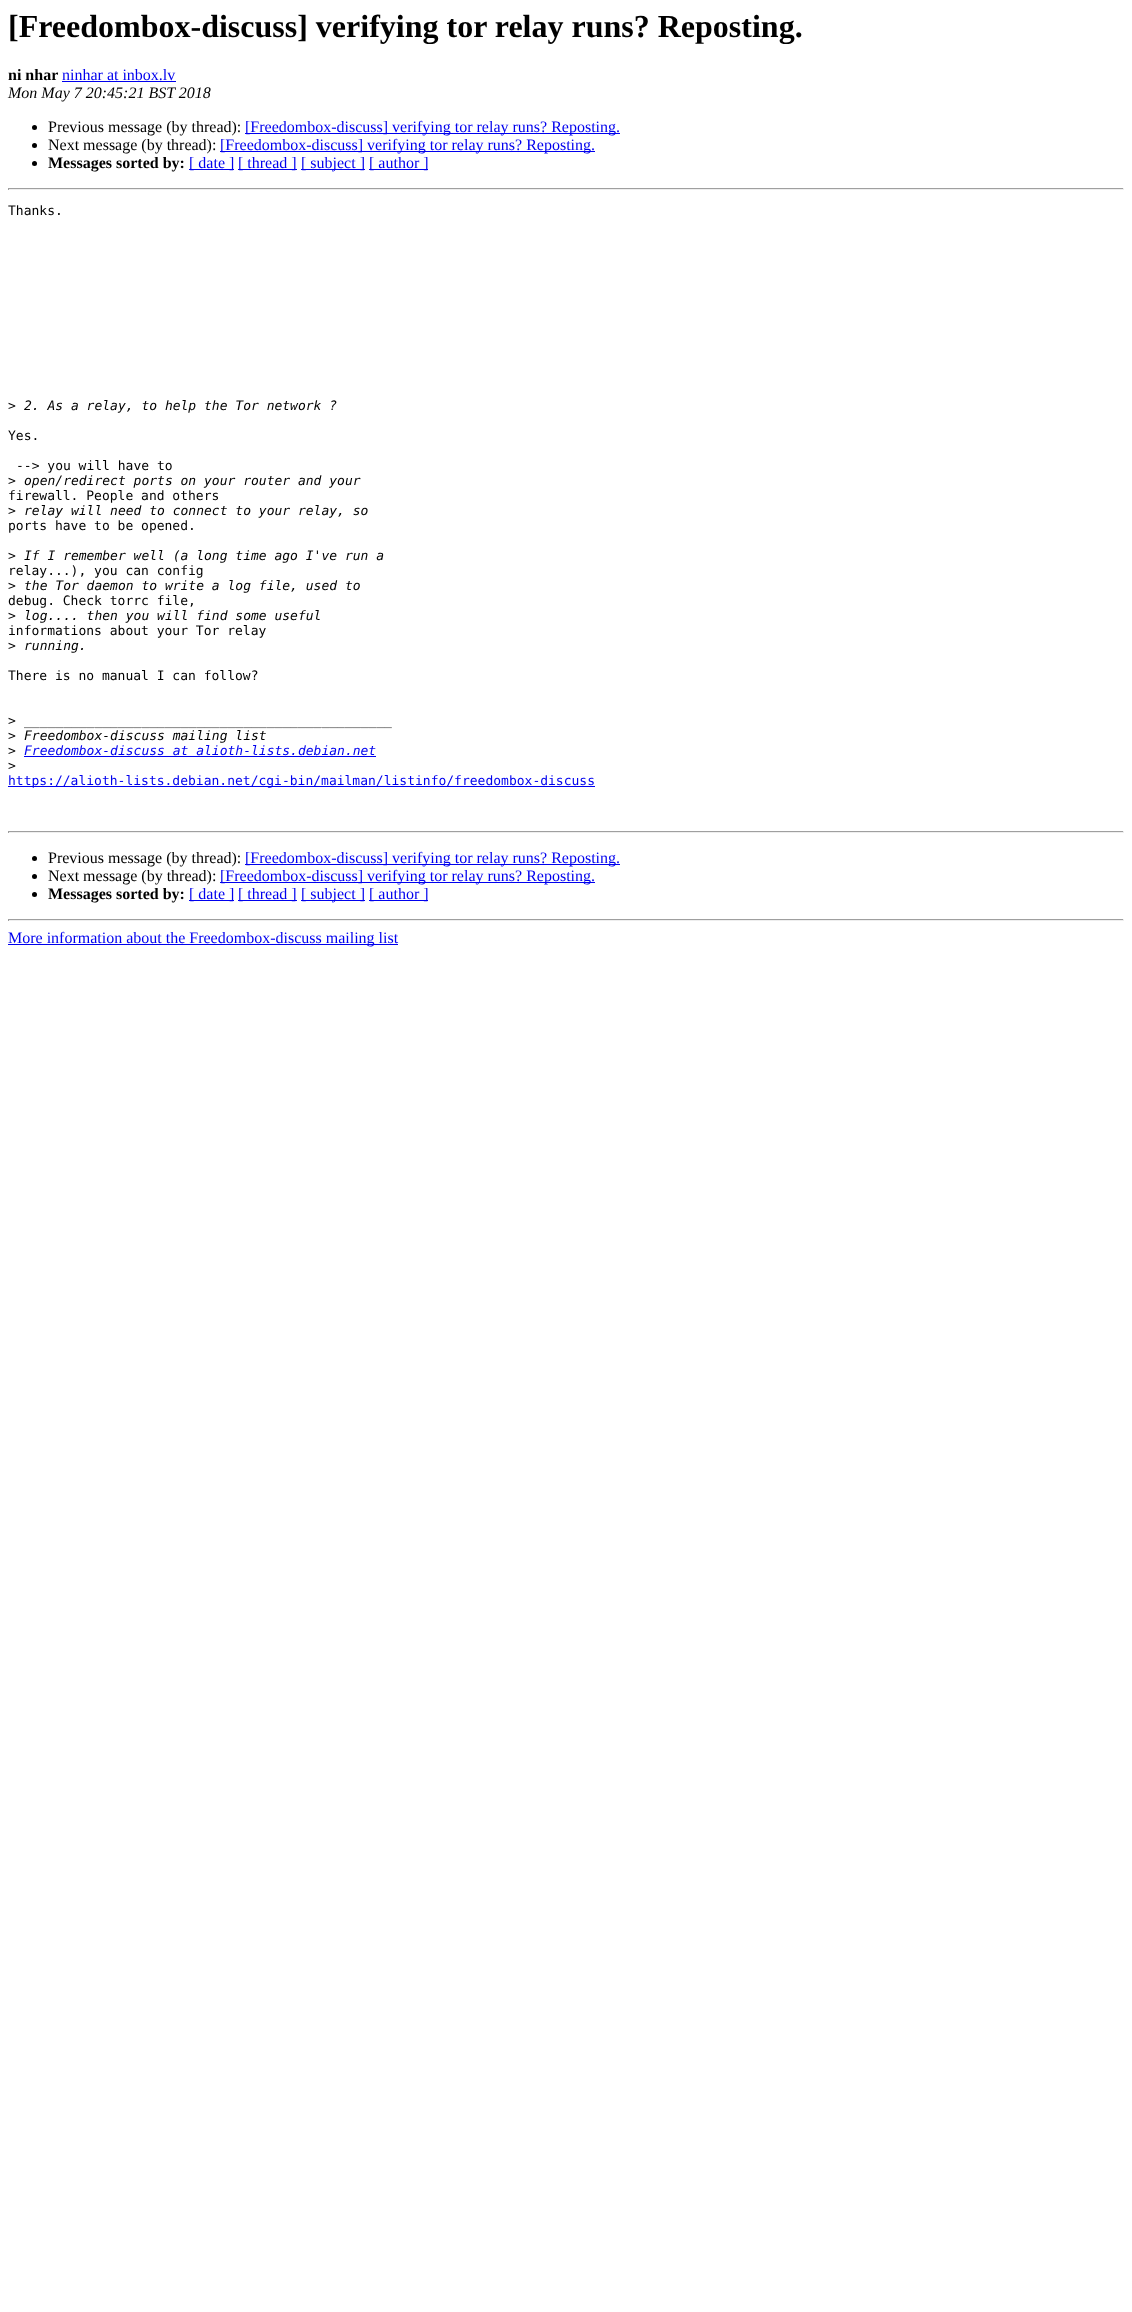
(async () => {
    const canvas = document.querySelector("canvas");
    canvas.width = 1132;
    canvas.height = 2312;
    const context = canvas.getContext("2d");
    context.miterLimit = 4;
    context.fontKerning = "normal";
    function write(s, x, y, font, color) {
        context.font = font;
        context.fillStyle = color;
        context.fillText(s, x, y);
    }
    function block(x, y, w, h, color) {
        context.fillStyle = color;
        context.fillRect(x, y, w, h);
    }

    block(0, 0, 1132, 2312, "rgb(255, 255, 255)");
    write("[Freedombox-discuss] verifying tor relay runs? Reposting.", 8, 37, "bold 32px Liberation Serif", "rgb(0, 0, 0)");
    write("ni nhar", 8, 80, "bold 16px Liberation Serif", "rgb(0, 0, 0)");
    write("ninhar at inbox.lv", 62, 80, "16px Liberation Serif", "rgb(0, 0, 238)");
    block(62, 81, 114, 1, "rgb(0, 0, 238)");
    write("Mon May 7 20:45:21 BST 2018", 8, 98, "italic 16px Liberation Serif", "rgb(0, 0, 0)");
    context.beginPath();
    context.arc(34.5, 127.5, 2.5, 0, Math.PI * 2);
    context.fill();
    write("Previous message (by thread):", 48, 132, "16px Liberation Serif", "rgb(0, 0, 0)");
    block(245, 133, 375, 1, "rgb(0, 0, 238)");
    write("[Freedombox-discuss] verifying tor relay runs? Reposting.", 245, 132, "16px Liberation Serif", "rgb(0, 0, 238)");
    context.fillStyle = "rgb(0, 0, 0)";
    context.beginPath();
    context.arc(34.5, 145.5, 2.5, 0, Math.PI * 2);
    context.fill();
    write("Next message (by thread):", 48, 150, "16px Liberation Serif", "rgb(0, 0, 0)");
    block(220, 151, 375, 1, "rgb(0, 0, 238)");
    write("[Freedombox-discuss] verifying tor relay runs? Reposting.", 220, 150, "16px Liberation Serif", "rgb(0, 0, 238)");
    context.fillStyle = "rgb(0, 0, 0)";
    context.beginPath();
    context.arc(34.5, 163.5, 2.5, 0, Math.PI * 2);
    context.fill();
    write("Messages sorted by:", 48, 168, "bold 16px Liberation Serif", "rgb(0, 0, 0)");
    block(189, 169, 45, 1, "rgb(0, 0, 238)");
    write("[ date ]", 189, 168, "16px Liberation Serif", "rgb(0, 0, 238)");
    block(238, 169, 59, 1, "rgb(0, 0, 238)");
    write("[ thread ]", 238, 168, "16px Liberation Serif", "rgb(0, 0, 238)");
    block(301, 169, 64, 1, "rgb(0, 0, 238)");
    write("[ subject ]", 301, 168, "16px Liberation Serif", "rgb(0, 0, 238)");
    block(369, 169, 59, 1, "rgb(0, 0, 238)");
    write("[ author ]", 369, 168, "16px Liberation Serif", "rgb(0, 0, 238)");
    block(8, 188, 1116, 1, "rgb(159, 159, 159)");
    block(1123, 188, 1, 2, "rgb(238, 238, 238)");
    block(8, 189, 1116, 1, "rgb(238, 238, 238)");
    block(8, 188, 1, 2, "rgb(159, 159, 159)");
    write("Thanks.", 8, 215, "13px DejaVu Sans Mono", "rgb(0, 0, 0)");
    write(">", 8, 410, "13px DejaVu Sans Mono", "rgb(0, 0, 0)");
    write("2. As a relay, to help the Tor network ?", 24, 410, "italic 13px DejaVu Sans Mono", "rgb(0, 0, 0)");
    write("Yes.", 8, 440, "13px DejaVu Sans Mono", "rgb(0, 0, 0)");
    write("--> you will have to", 16, 470, "13px DejaVu Sans Mono", "rgb(0, 0, 0)");
    write(">", 8, 485, "13px DejaVu Sans Mono", "rgb(0, 0, 0)");
    write("open/redirect ports on your router and your", 24, 485, "italic 13px DejaVu Sans Mono", "rgb(0, 0, 0)");
    write("firewall. People and others", 8, 500, "13px DejaVu Sans Mono", "rgb(0, 0, 0)");
    write(">", 8, 515, "13px DejaVu Sans Mono", "rgb(0, 0, 0)");
    write("relay will need to connect to your relay, so", 24, 515, "italic 13px DejaVu Sans Mono", "rgb(0, 0, 0)");
    write("ports have to be opened.", 8, 530, "13px DejaVu Sans Mono", "rgb(0, 0, 0)");
    write(">", 8, 560, "13px DejaVu Sans Mono", "rgb(0, 0, 0)");
    write("If I remember well (a long time ago I've run a", 24, 560, "italic 13px DejaVu Sans Mono", "rgb(0, 0, 0)");
    write("relay...), you can config", 8, 575, "13px DejaVu Sans Mono", "rgb(0, 0, 0)");
    write(">", 8, 590, "13px DejaVu Sans Mono", "rgb(0, 0, 0)");
    write("the Tor daemon to write a log file, used to", 24, 590, "italic 13px DejaVu Sans Mono", "rgb(0, 0, 0)");
    write("debug. Check torrc file,", 8, 605, "13px DejaVu Sans Mono", "rgb(0, 0, 0)");
    write(">", 8, 620, "13px DejaVu Sans Mono", "rgb(0, 0, 0)");
    write("log.... then you will find some useful", 24, 620, "italic 13px DejaVu Sans Mono", "rgb(0, 0, 0)");
    write("informations about your Tor relay", 8, 635, "13px DejaVu Sans Mono", "rgb(0, 0, 0)");
    write(">", 8, 650, "13px DejaVu Sans Mono", "rgb(0, 0, 0)");
    write("running.", 24, 650, "italic 13px DejaVu Sans Mono", "rgb(0, 0, 0)");
    write("There is no manual I can follow?", 8, 680, "13px DejaVu Sans Mono", "rgb(0, 0, 0)");
    write(">", 8, 725, "13px DejaVu Sans Mono", "rgb(0, 0, 0)");
    write("_______________________________________________", 24, 725, "italic 13px DejaVu Sans Mono", "rgb(0, 0, 0)");
    write(">", 8, 740, "13px DejaVu Sans Mono", "rgb(0, 0, 0)");
    write("Freedombox-discuss mailing list", 24, 740, "italic 13px DejaVu Sans Mono", "rgb(0, 0, 0)");
    write(">", 8, 755, "13px DejaVu Sans Mono", "rgb(0, 0, 0)");
    write("Freedombox-discuss at alioth-lists.debian.net", 24, 755, "italic 13px DejaVu Sans Mono", "rgb(0, 0, 238)");
    block(24, 756, 352, 1, "rgb(0, 0, 238)");
    write(">", 8, 770, "13px DejaVu Sans Mono", "rgb(0, 0, 0)");
    block(8, 786, 587, 1, "rgb(0, 0, 238)");
    write("https://alioth-lists.debian.net/cgi-bin/mailman/listinfo/freedombox-discuss", 8, 785, "13px DejaVu Sans Mono", "rgb(0, 0, 238)");
    block(8, 831, 1116, 1, "rgb(159, 159, 159)");
    block(1123, 831, 1, 2, "rgb(238, 238, 238)");
    block(8, 832, 1116, 1, "rgb(238, 238, 238)");
    block(8, 831, 1, 2, "rgb(159, 159, 159)");
    context.fillStyle = "rgb(0, 0, 0)";
    context.beginPath();
    context.arc(34.5, 858.5, 2.5, 0, Math.PI * 2);
    context.fill();
    write("Previous message (by thread):", 48, 863, "16px Liberation Serif", "rgb(0, 0, 0)");
    block(245, 864, 375, 1, "rgb(0, 0, 238)");
    write("[Freedombox-discuss] verifying tor relay runs? Reposting.", 245, 863, "16px Liberation Serif", "rgb(0, 0, 238)");
    context.fillStyle = "rgb(0, 0, 0)";
    context.beginPath();
    context.arc(34.5, 876.5, 2.5, 0, Math.PI * 2);
    context.fill();
    write("Next message (by thread):", 48, 881, "16px Liberation Serif", "rgb(0, 0, 0)");
    block(220, 882, 375, 1, "rgb(0, 0, 238)");
    write("[Freedombox-discuss] verifying tor relay runs? Reposting.", 220, 881, "16px Liberation Serif", "rgb(0, 0, 238)");
    context.fillStyle = "rgb(0, 0, 0)";
    context.beginPath();
    context.arc(34.5, 894.5, 2.5, 0, Math.PI * 2);
    context.fill();
    write("Messages sorted by:", 48, 899, "bold 16px Liberation Serif", "rgb(0, 0, 0)");
    block(189, 900, 45, 1, "rgb(0, 0, 238)");
    write("[ date ]", 189, 899, "16px Liberation Serif", "rgb(0, 0, 238)");
    block(238, 900, 59, 1, "rgb(0, 0, 238)");
    write("[ thread ]", 238, 899, "16px Liberation Serif", "rgb(0, 0, 238)");
    block(301, 900, 64, 1, "rgb(0, 0, 238)");
    write("[ subject ]", 301, 899, "16px Liberation Serif", "rgb(0, 0, 238)");
    block(369, 900, 59, 1, "rgb(0, 0, 238)");
    write("[ author ]", 369, 899, "16px Liberation Serif", "rgb(0, 0, 238)");
    block(8, 919, 1116, 1, "rgb(159, 159, 159)");
    block(1123, 919, 1, 2, "rgb(238, 238, 238)");
    block(8, 920, 1116, 1, "rgb(238, 238, 238)");
    block(8, 919, 1, 2, "rgb(159, 159, 159)");
    block(8, 944, 390, 1, "rgb(0, 0, 238)");
    write("More information about the Freedombox-discuss mailing list", 8, 943, "16px Liberation Serif", "rgb(0, 0, 238)");
})();
